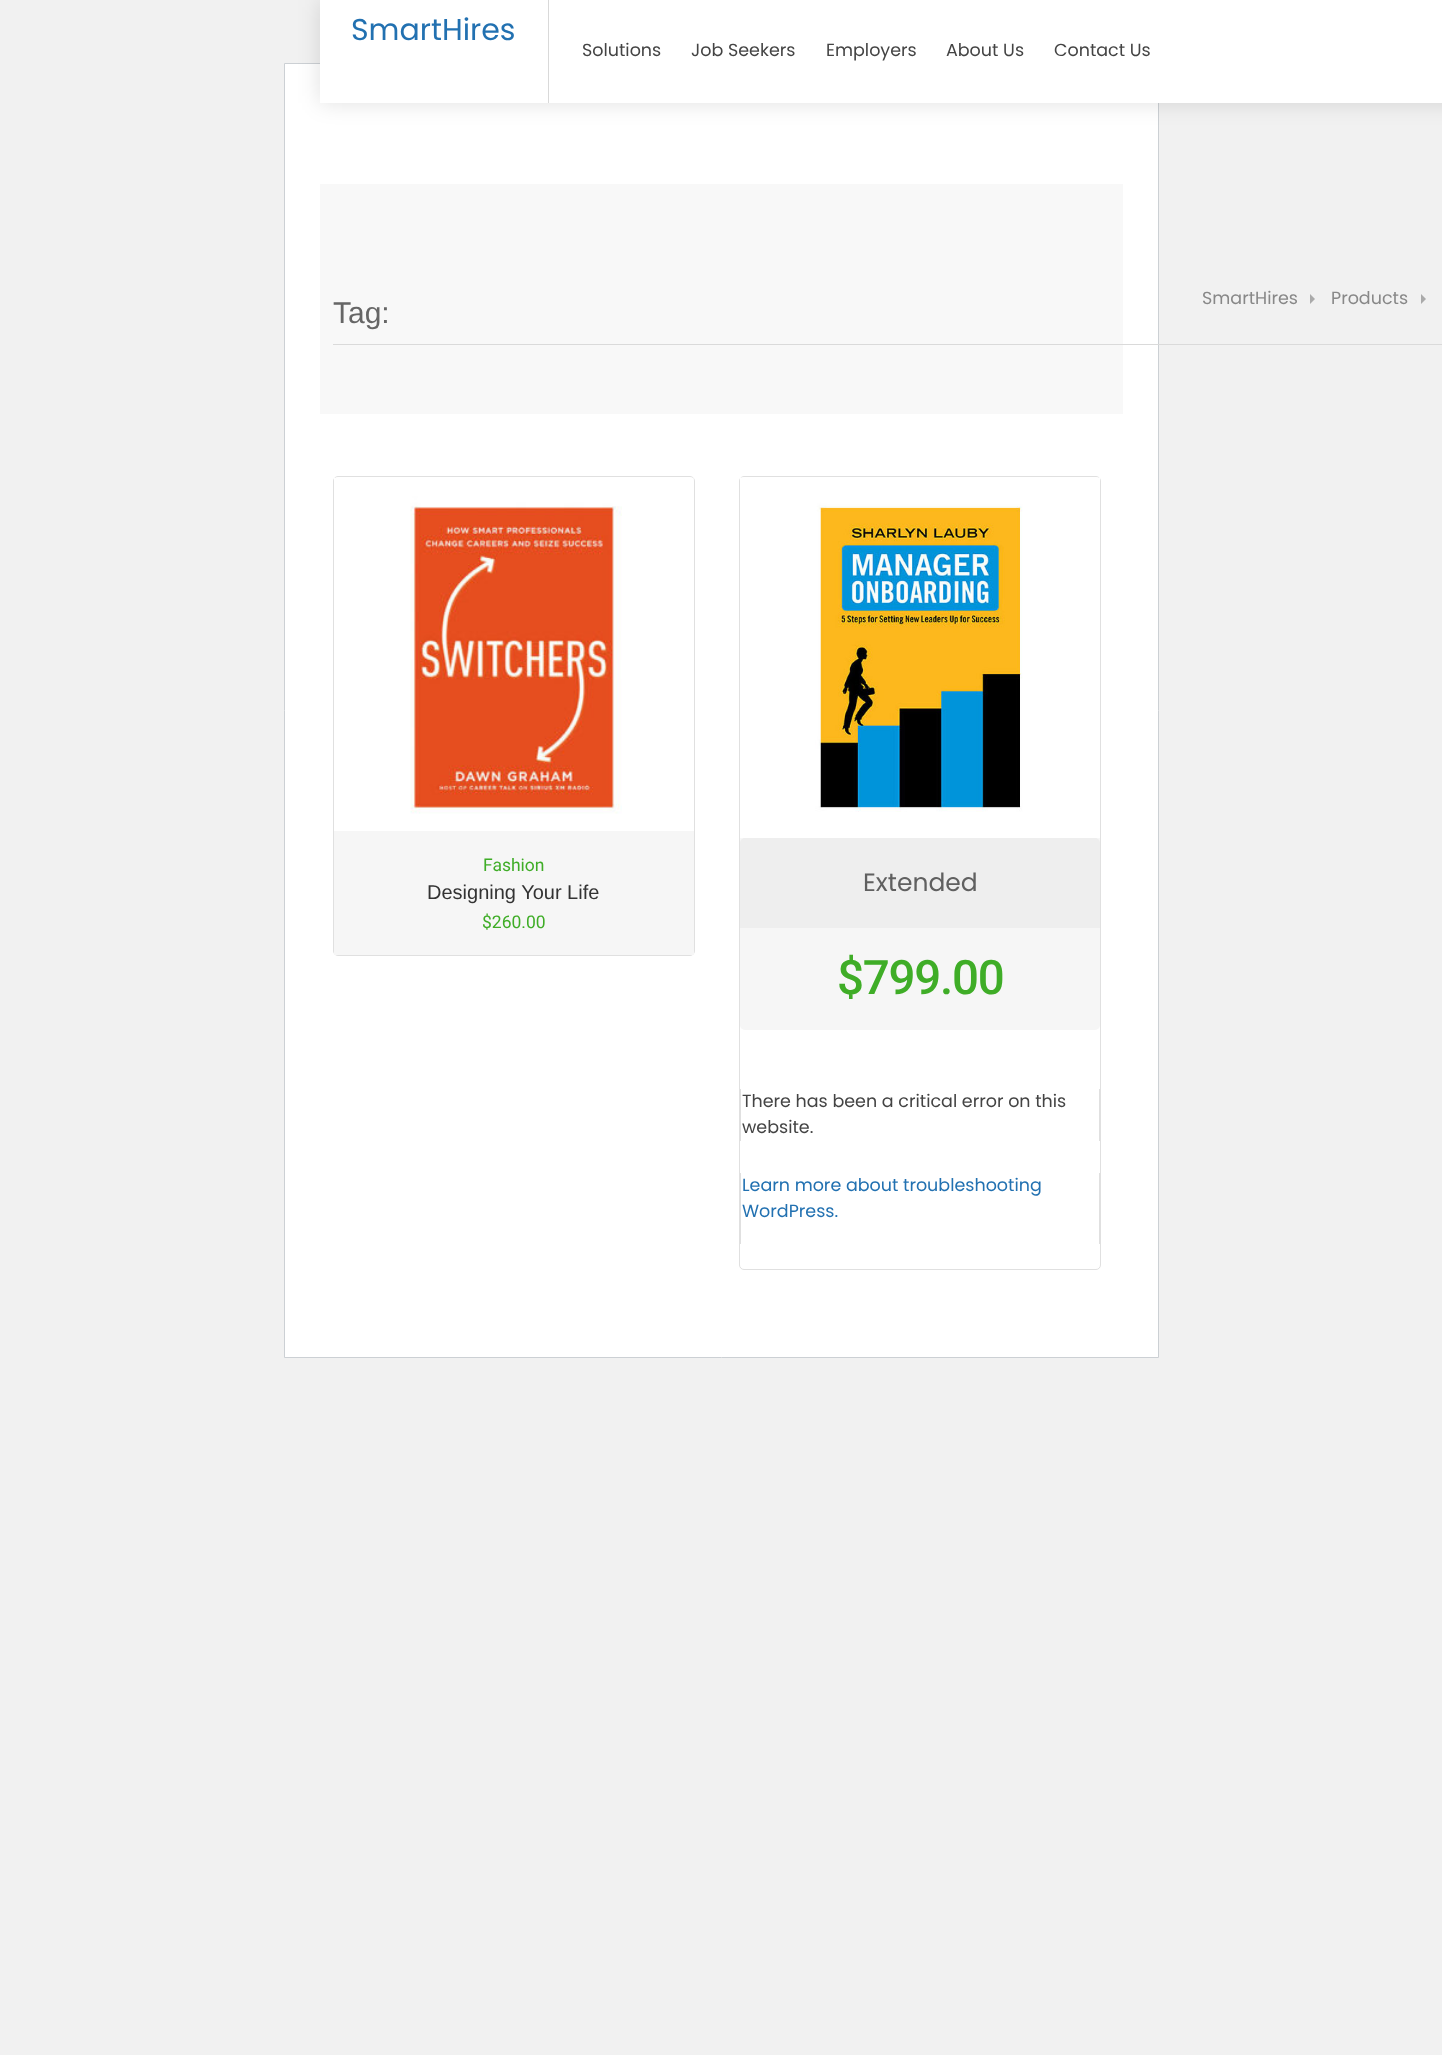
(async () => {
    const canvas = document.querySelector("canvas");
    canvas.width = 1442;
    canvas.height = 2055;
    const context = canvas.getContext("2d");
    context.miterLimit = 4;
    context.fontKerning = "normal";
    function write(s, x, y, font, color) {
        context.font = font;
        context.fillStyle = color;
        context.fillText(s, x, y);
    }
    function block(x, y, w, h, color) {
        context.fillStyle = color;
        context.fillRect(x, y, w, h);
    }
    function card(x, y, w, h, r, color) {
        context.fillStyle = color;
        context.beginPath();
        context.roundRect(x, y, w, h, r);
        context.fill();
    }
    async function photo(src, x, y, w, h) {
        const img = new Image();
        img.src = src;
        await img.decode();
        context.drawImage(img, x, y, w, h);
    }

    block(0, 0, 1442, 2055, "rgb(241, 241, 241)");
    context.fillStyle = "rgb(255, 255, 255)";
    context.beginPath();
    context.rect(284.5, 63.5, 874, 1294);
    context.fill();
    context.strokeStyle = "rgb(204, 208, 212)";
    context.stroke();
    context.fillStyle = "rgba(0, 0, 0, 0.12)";
    context.filter = "blur(11px)";
    context.beginPath();
    context.rect(320, 0, 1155, 103);
    context.fill();
    context.filter = "none";
    block(320, 0, 1122, 103, "rgb(255, 255, 255)");
    block(548, 0, 1, 103, "rgb(217, 217, 217)");
    write("SmartHires", 351, 40, "30px Poppins", "rgb(34, 113, 177)");
    write("Solutions", 582, 56, "17.5px Poppins", "rgb(68, 68, 68)");
    write("Job Seekers", 691, 56, "17.5px Poppins", "rgb(68, 68, 68)");
    write("Employers", 826, 56, "17.5px Poppins", "rgb(68, 68, 68)");
    write("About Us", 946, 56, "17.5px Poppins", "rgb(68, 68, 68)");
    write("Contact Us", 1054, 56, "17.5px Poppins", "rgb(68, 68, 68)");
    block(320, 184, 803, 230, "rgb(248, 248, 248)");
    write("SmartHires", 1202, 304, "17.5px Poppins", "rgb(136, 136, 136)");
    context.fillStyle = "rgb(170, 170, 170)";
    context.beginPath();
    context.moveTo(1310, 304);
    context.lineTo(1310, 294);
    context.lineTo(1315, 299);
    context.closePath();
    context.fill();
    write("Products", 1331, 304, "17.5px Poppins", "rgb(136, 136, 136)");
    context.fillStyle = "rgb(170, 170, 170)";
    context.beginPath();
    context.moveTo(1421, 304);
    context.lineTo(1421, 294);
    context.lineTo(1426, 299);
    context.closePath();
    context.fill();
    block(333, 344, 1109, 1, "rgb(218, 218, 218)");
    write("Tag:", 333, 323, "30px Liberation Sans", "rgb(102, 102, 102)");
    context.beginPath();
    context.roundRect(333.5, 476.5, 361, 479, 4.5);
    context.strokeStyle = "rgb(224, 224, 224)";
    context.stroke();
    await photo("media/1.png", 334, 477, 360, 337);
    block(334, 831, 360, 124, "rgb(246, 246, 246)");
    write("Fashion", 483, 871, "17.5px Roboto", "rgb(63, 173, 39)");
    write("Designing Your Life", 427, 899, "20px Liberation Sans", "rgb(51, 51, 51)");
    write("$260.00", 482, 928, "17.5px Roboto", "rgb(63, 173, 39)");
    context.beginPath();
    context.roundRect(739.5, 476.5, 361, 793, 4.5);
    context.stroke();
    await photo("media/2.png", 740, 477, 360, 335);
    card(740, 838, 360, 192, 5, "rgb(246, 246, 246)");
    block(740, 838, 360, 90, "rgba(0, 0, 0, 0.03)");
    write("Extended", 863, 891, "25px Poppins", "rgb(96, 96, 96)");
    context.letterSpacing = "-1.25px";
    write("$799.00", 837, 994, "500 47.5px Roboto", "rgb(63, 173, 39)");
    block(1099, 1089, 1, 52, "rgb(224, 224, 224)");
    block(740, 1089, 1, 52, "rgb(224, 224, 224)");
    context.letterSpacing = "0px";
    write("There has been a critical error on this", 742, 1107, "17.5px Poppins", "rgb(68, 68, 68)");
    write("website.", 742, 1133, "17.5px Poppins", "rgb(68, 68, 68)");
    block(1099, 1173, 1, 71, "rgb(224, 224, 224)");
    block(740, 1173, 1, 71, "rgb(224, 224, 224)");
    write("Learn more about troubleshooting", 742, 1191, "17.5px Poppins", "rgb(34, 113, 177)");
    write("WordPress.", 742, 1217, "17.5px Poppins", "rgb(34, 113, 177)");
})();
